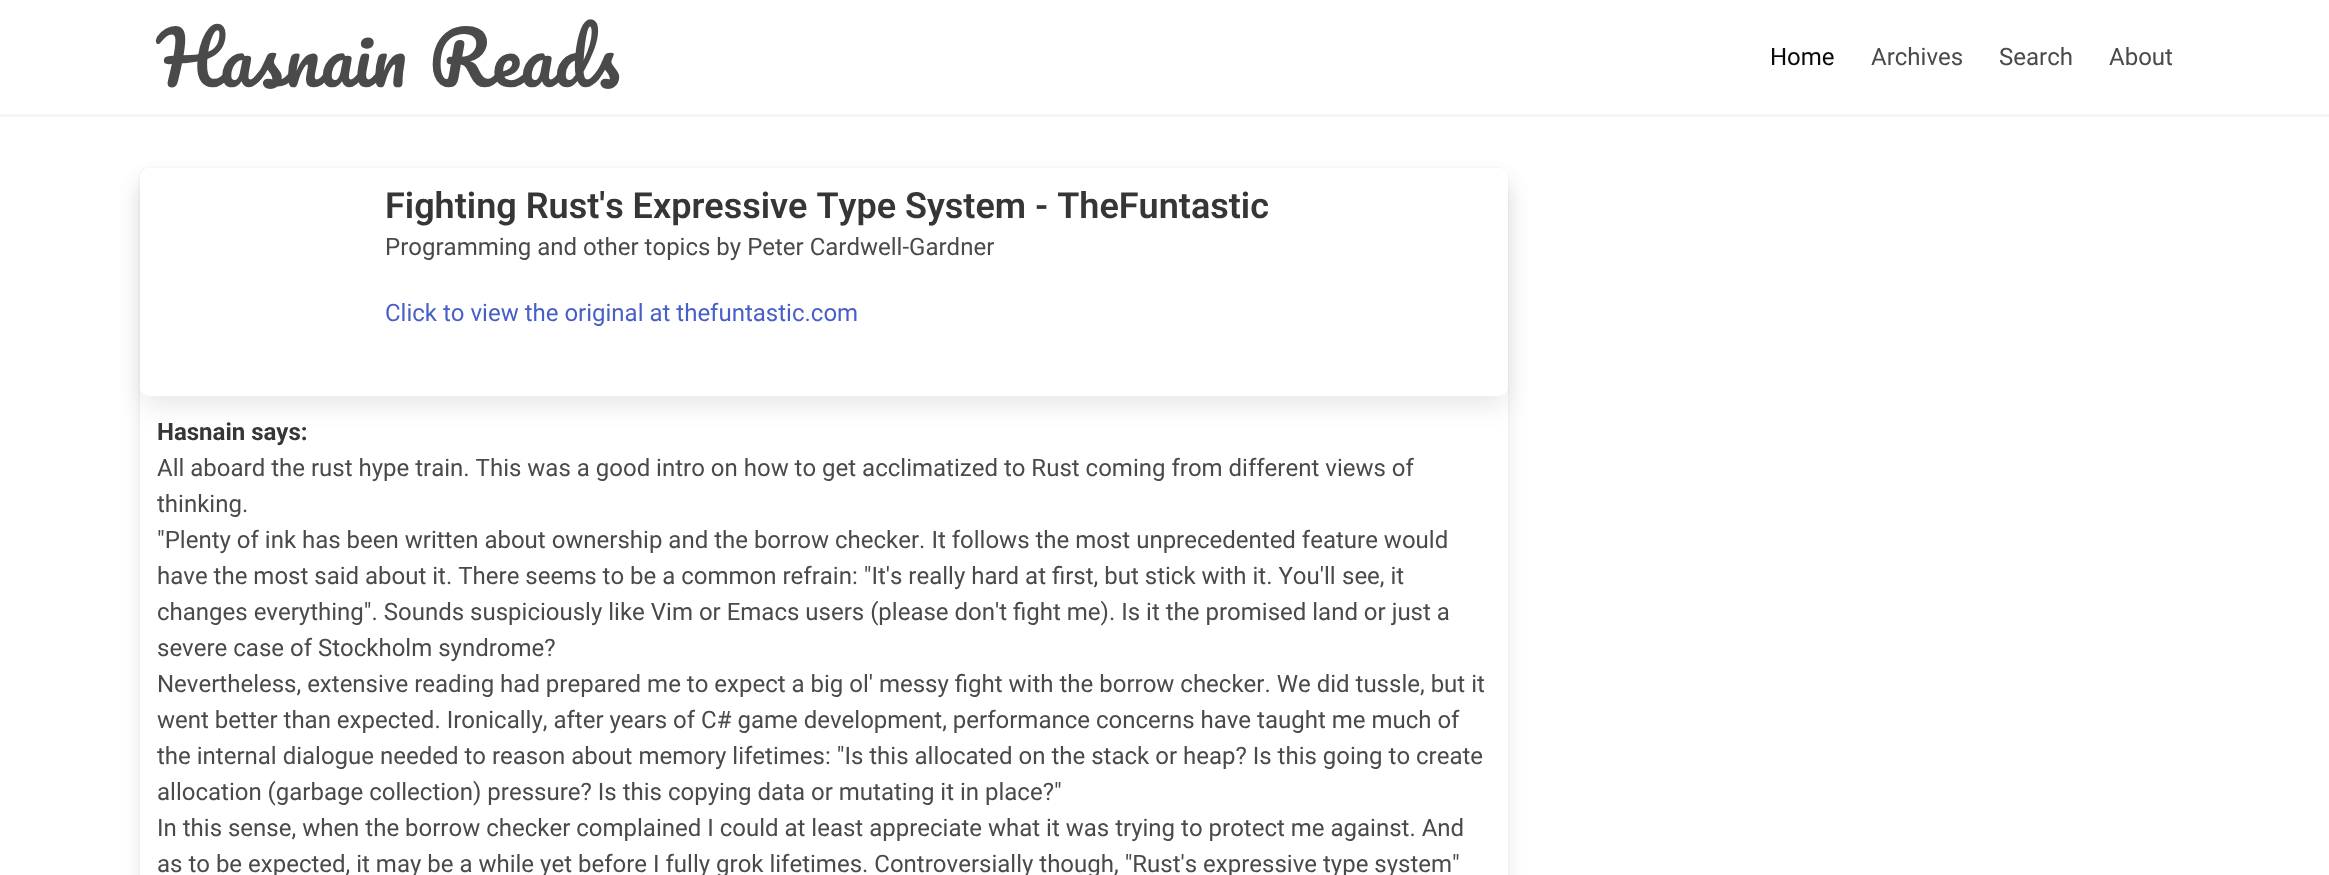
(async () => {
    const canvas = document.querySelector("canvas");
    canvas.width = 2329;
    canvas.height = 875;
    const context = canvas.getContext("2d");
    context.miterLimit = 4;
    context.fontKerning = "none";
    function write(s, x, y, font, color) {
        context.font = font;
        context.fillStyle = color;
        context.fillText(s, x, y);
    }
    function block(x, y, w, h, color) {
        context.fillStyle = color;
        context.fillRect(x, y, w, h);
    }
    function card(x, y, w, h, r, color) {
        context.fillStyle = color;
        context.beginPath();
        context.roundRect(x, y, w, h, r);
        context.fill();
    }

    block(0, 0, 2329, 875, "rgb(255, 255, 255)");
    context.fillStyle = "rgb(245, 245, 245)";
    context.beginPath();
    context.moveTo(0, 114);
    context.lineTo(0, 117);
    context.lineTo(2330, 117);
    context.lineTo(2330, 3);
    context.lineTo(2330, 114);
    context.closePath();
    context.fill();
    context.wordSpacing = "3px";
    write("Hasnain Reads", 157, 87, "72px Pacifico", "rgb(74, 74, 74)");
    context.wordSpacing = "0px";
    write("Home", 1770, 65, "24px Roboto", "rgb(10, 10, 10)");
    write("Archives", 1871, 65, "24px Roboto", "rgb(74, 74, 74)");
    write("Search", 1999, 65, "24px Roboto", "rgb(74, 74, 74)");
    write("About", 2109, 65, "24px Roboto", "rgb(74, 74, 74)");
    context.beginPath();
    context.roundRect(139, 168, 1369, 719, 10);
    context.strokeStyle = "rgb(250, 250, 250)";
    context.lineWidth = 2;
    context.stroke();
    context.fillStyle = "rgba(10, 10, 10, 0.1)";
    context.filter = "blur(12px)";
    context.beginPath();
    context.roundRect(143, 183, 1362, 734, 6);
    context.fill();
    context.filter = "none";
    card(140, 168, 1368, 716, 9, "rgb(255, 255, 255)");
    context.fillStyle = "rgba(10, 10, 10, 0.1)";
    context.filter = "blur(12px)";
    context.beginPath();
    context.roundRect(143, 183, 1362, 222, 6);
    context.fill();
    context.filter = "none";
    card(140, 168, 1368, 228, 9, "rgb(255, 255, 255)");
    write("Fighting Rust's Expressive Type System - TheFuntastic", 385, 218, "600 36px Roboto", "rgb(54, 54, 54)");
    write("Programming and other topics by Peter Cardwell-Gardner", 385, 255, "24px Roboto", "rgb(74, 74, 74)");
    write("Click to view the original at thefuntastic.com", 385, 321, "24px Roboto", "rgb(72, 95, 199)");
    write("Hasnain says:", 157, 440, "bold 24px Roboto", "rgb(54, 54, 54)");
    write("All aboard the rust hype train. This was a good intro on how to get acclimatized to Rust coming from different views of", 157, 476, "24px Roboto", "rgb(74, 74, 74)");
    write("thinking.", 157, 512, "24px Roboto", "rgb(74, 74, 74)");
    write("\"Plenty of ink has been written about ownership and the borrow checker. It follows the most unprecedented feature would", 157, 548, "24px Roboto", "rgb(74, 74, 74)");
    write("have the most said about it. There seems to be a common refrain: \"It's really hard at first, but stick with it. You'll", 157, 584, "24px Roboto", "rgb(74, 74, 74)");
    write("see, it", 1342, 584, "24px Roboto", "rgb(74, 74, 74)");
    write("changes everything\". Sounds suspiciously like Vim or Emacs users (please don't fight me). Is it the promised land or just a", 157, 620, "24px Roboto", "rgb(74, 74, 74)");
    write("severe case of Stockholm syndrome?", 157, 656, "24px Roboto", "rgb(74, 74, 74)");
    write("Nevertheless, extensive reading had prepared me to expect a big ol' messy fight with the borrow checker. We did tussle, but it", 157, 692, "24px Roboto", "rgb(74, 74, 74)");
    write("went better than expected. Ironically, after years of C# game development, performance concerns have taught me much of", 157, 728, "24px Roboto", "rgb(74, 74, 74)");
    write("the internal dialogue needed to reason about memory lifetimes: \"Is this allocated on the stack or heap? Is this going to create", 157, 764, "24px Roboto", "rgb(74, 74, 74)");
    write("allocation (garbage collection) pressure? Is this copying data or mutating it in place?\"", 157, 800, "24px Roboto", "rgb(74, 74, 74)");
    write("In this sense, when the borrow checker complained I could at least appreciate what it was trying to protect me against. And", 157, 836, "24px Roboto", "rgb(74, 74, 74)");
    write("as to be expected, it may be a while yet before I fully grok lifetimes. Controversially though, \"Rust's expressive type system\"", 157, 872, "24px Roboto", "rgb(74, 74, 74)");
})();
